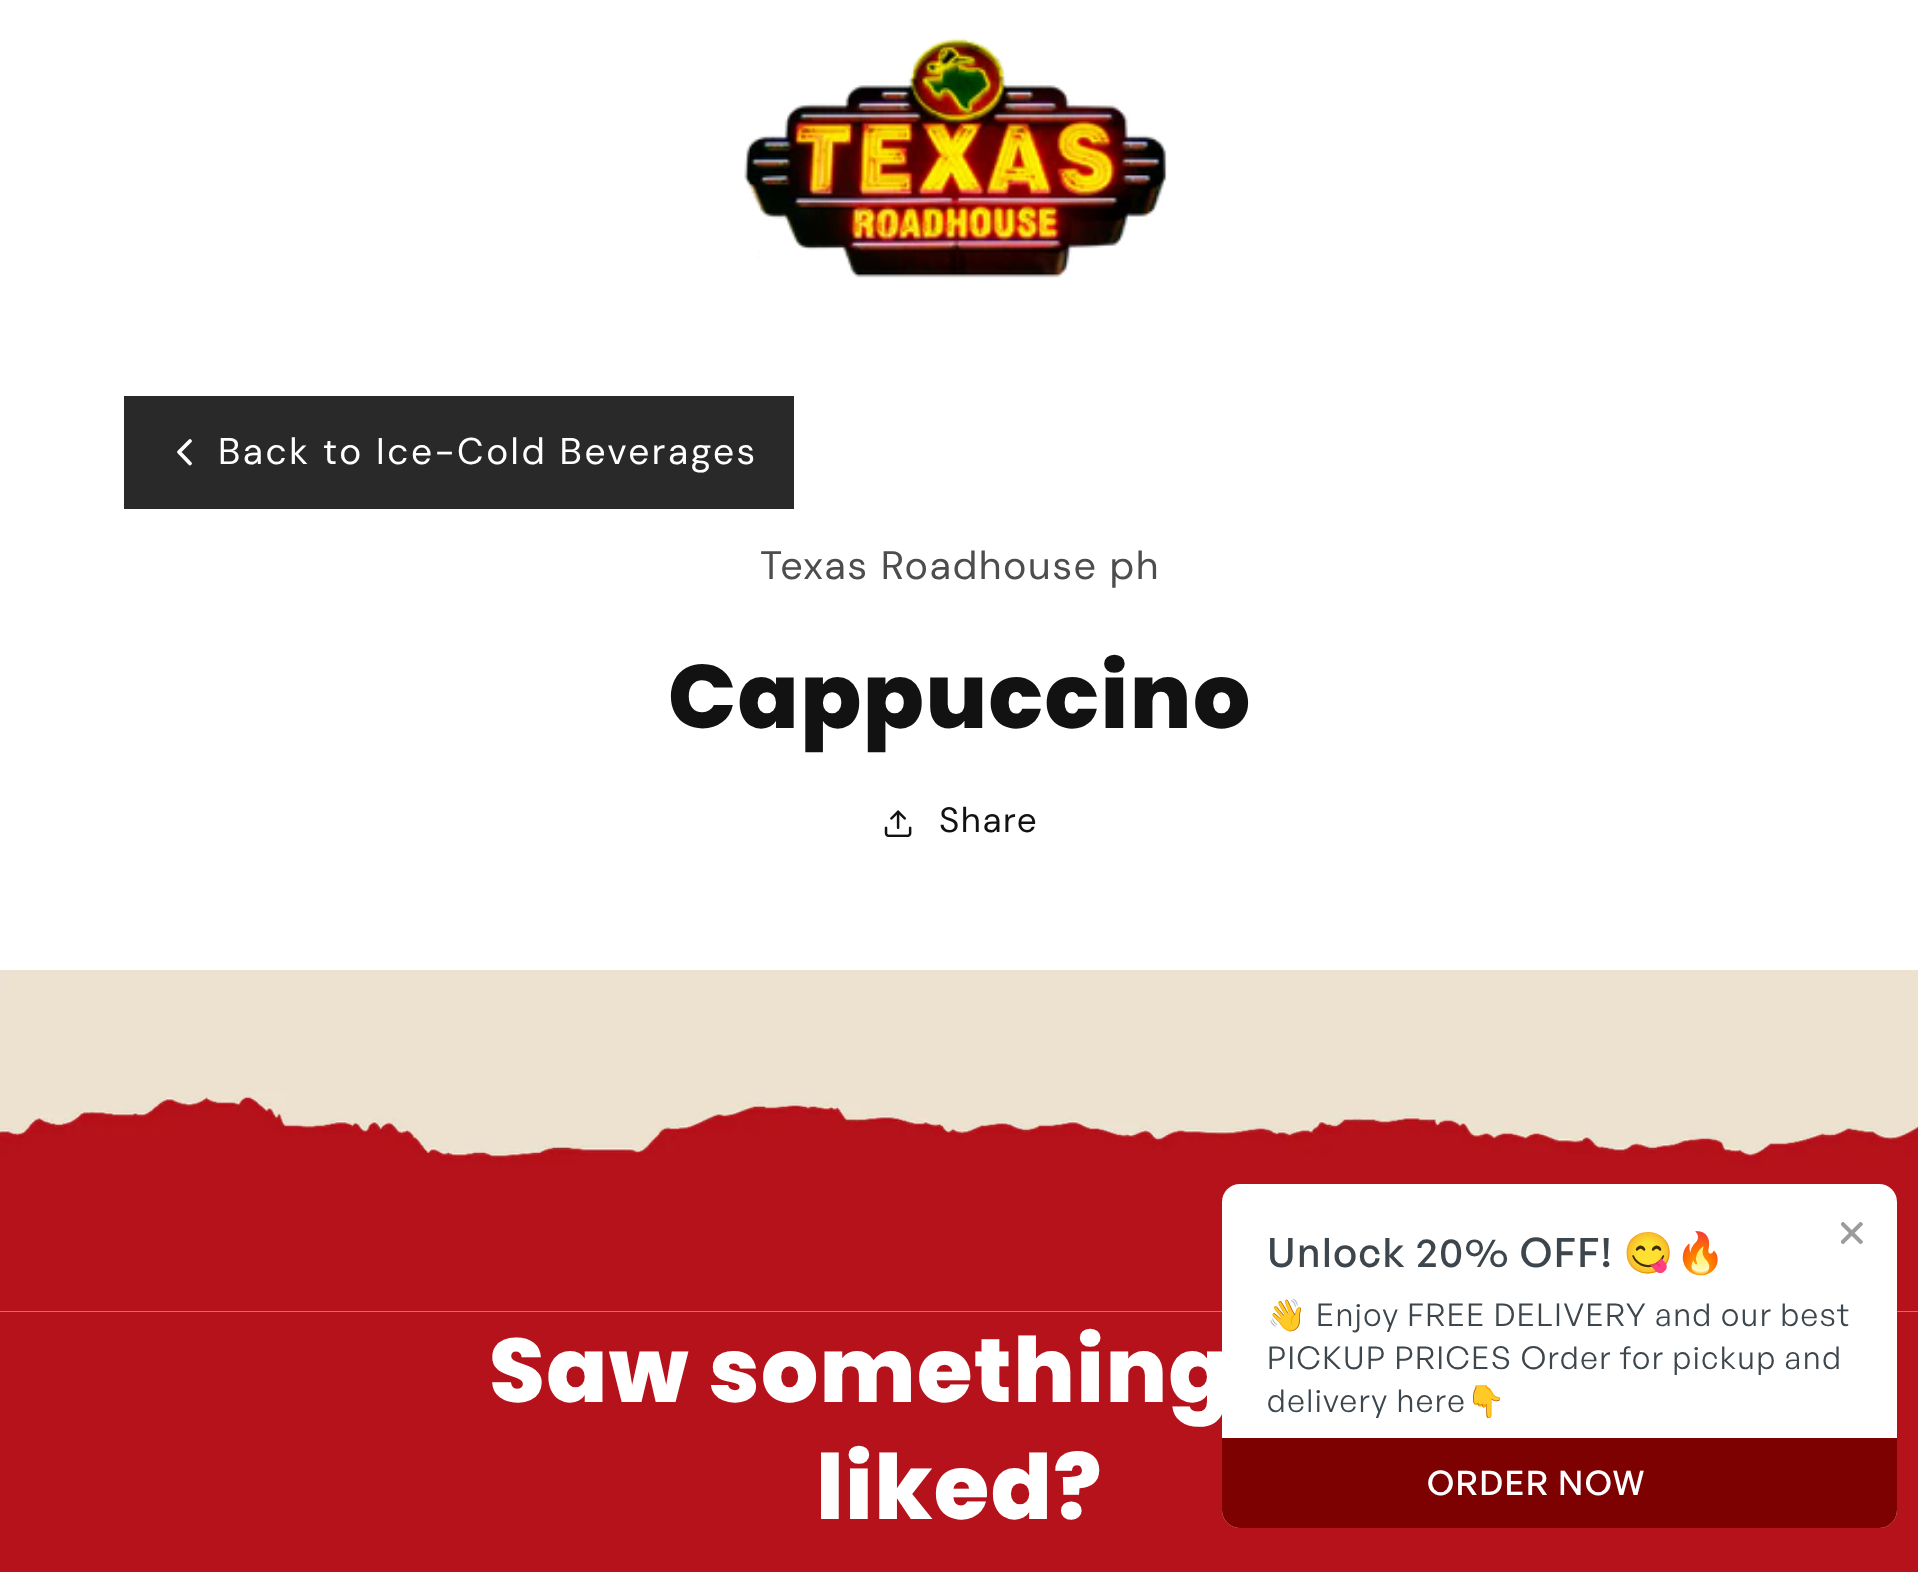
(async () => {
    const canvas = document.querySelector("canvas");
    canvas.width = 1918;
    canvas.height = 1572;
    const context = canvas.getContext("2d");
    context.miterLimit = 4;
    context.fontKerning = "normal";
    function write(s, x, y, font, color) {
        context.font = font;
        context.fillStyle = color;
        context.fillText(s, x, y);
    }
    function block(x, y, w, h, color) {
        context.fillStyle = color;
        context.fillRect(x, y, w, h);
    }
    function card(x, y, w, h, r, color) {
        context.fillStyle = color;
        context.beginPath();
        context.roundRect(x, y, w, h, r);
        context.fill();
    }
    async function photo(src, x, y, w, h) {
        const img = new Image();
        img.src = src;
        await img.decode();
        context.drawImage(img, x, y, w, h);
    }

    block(0, 0, 1918, 1572, "rgb(255, 255, 255)");
    await photo("media/1.png", 744, 38, 423, 240);
    block(124, 396, 670, 113, "rgb(41, 41, 41)");
    context.beginPath();
    context.moveTo(190, 463.5);
    context.lineTo(179, 452);
    context.lineTo(190, 441);
    context.strokeStyle = "rgb(255, 255, 255)";
    context.lineWidth = 3.8;
    context.lineCap = "round";
    context.lineJoin = "round";
    context.stroke();
    context.letterSpacing = "2.5px";
    write("Back to Ice-Cold Beverages", 218, 464, "37.1px DM Sans", "rgb(255, 255, 255)");
    context.letterSpacing = "1.5px";
    write("Texas Roadhouse ph", 760, 579, "39.6px 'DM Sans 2'", "rgb(77, 77, 77)");
    context.letterSpacing = "1.4px";
    write("Cappuccino", 668, 728, "800 90px Poppins", "rgb(18, 18, 18)");
    await photo("media/2.png", 884, 810, 28, 27);
    context.letterSpacing = "1.5px";
    write("Share", 939, 832, "35px 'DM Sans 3'", "rgb(18, 18, 18)");
    block(0, 1311, 1918, 1, "rgb(232, 232, 232)");
    await photo("media/3.png", 0, 970, 1918, 342);
    block(0, 1312, 1918, 260, "rgb(181, 18, 27)");
    context.letterSpacing = "1.4px";
    write("Saw something", 489, 1402, "800 90px Poppins", "rgb(255, 255, 255)");
    write("liked?", 816, 1519, "800 90px Poppins", "rgb(255, 255, 255)");
    card(1222, 1184, 675, 344, 18, "rgb(255, 255, 255)");
    context.letterSpacing = "1.5px";
    write("Unlock 20% OFF!", 1267, 1267, "500 40.5px General Sans", "rgb(61, 70, 77)");
    write("😋🔥", 1623, 1267, "40.5px Noto Color Emoji", "rgb(61, 70, 77)");
    await photo("media/4.png", 1841, 1222, 22, 22);
    write("👋", 1267, 1326, "31.5px Noto Color Emoji", "rgb(61, 70, 77)");
    write("Enjoy FREE DELIVERY and our best", 1316, 1326, "31.5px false", "rgb(61, 70, 77)");
    write("PICKUP PRICES Order for pickup and", 1267, 1369, "31.5px false", "rgb(61, 70, 77)");
    write("delivery here", 1267, 1412, "31.5px false", "rgb(61, 70, 77)");
    write("👇", 1466, 1412, "31.5px Noto Color Emoji", "rgb(61, 70, 77)");
    context.fillStyle = "rgb(125, 1, 0)";
    context.beginPath();
    context.roundRect(1222, 1438, 675, 90, [0, 0, 18, 18]);
    context.fill();
    write("ORDER NOW", 1427, 1495, "500 33.75px General Sans", "rgb(255, 255, 255)");
})();
